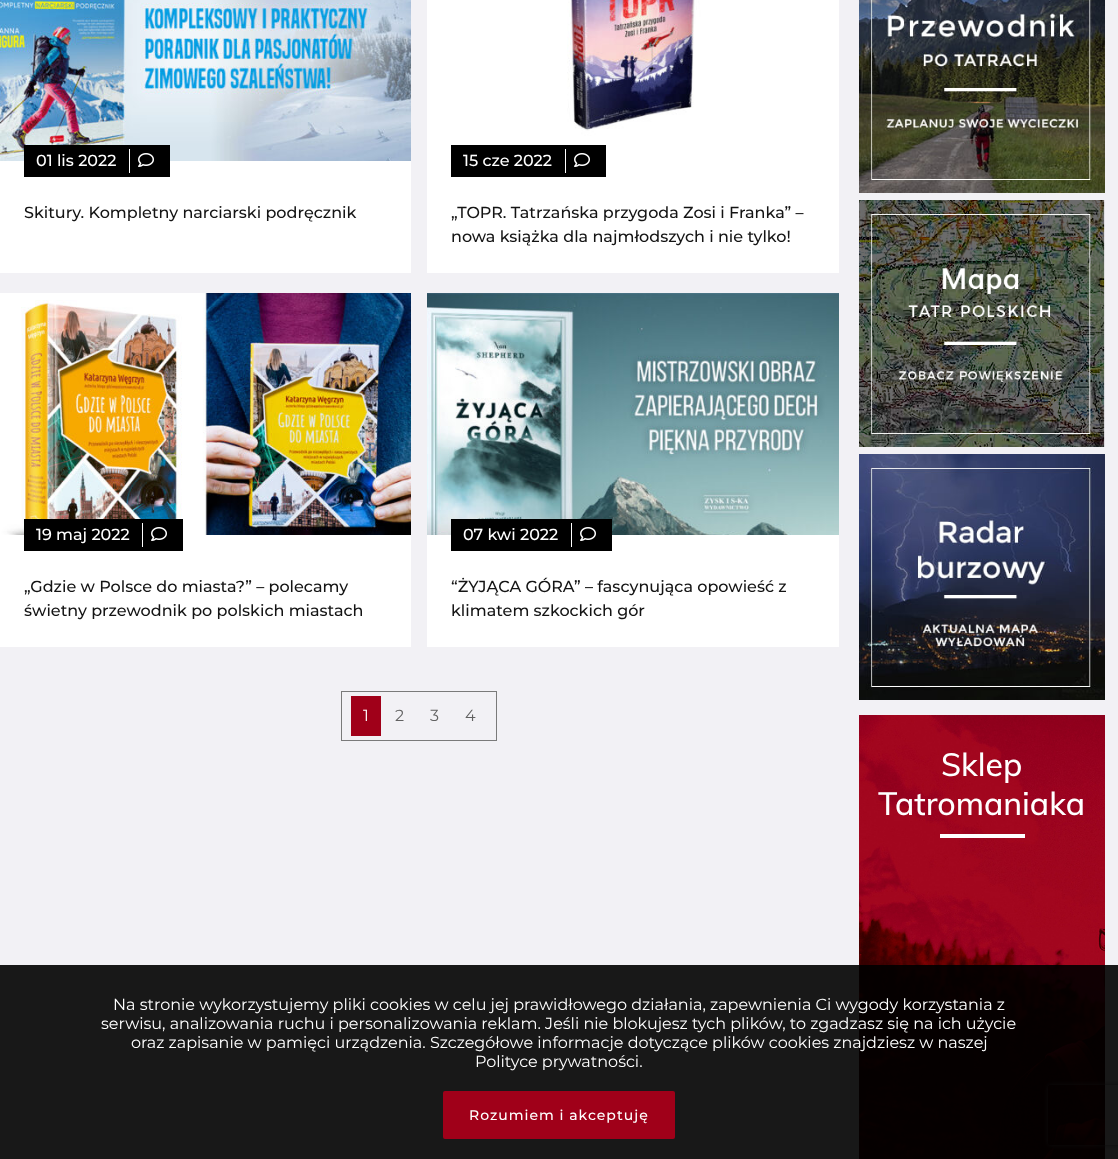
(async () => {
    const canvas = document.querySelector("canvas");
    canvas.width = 1118;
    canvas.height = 1159;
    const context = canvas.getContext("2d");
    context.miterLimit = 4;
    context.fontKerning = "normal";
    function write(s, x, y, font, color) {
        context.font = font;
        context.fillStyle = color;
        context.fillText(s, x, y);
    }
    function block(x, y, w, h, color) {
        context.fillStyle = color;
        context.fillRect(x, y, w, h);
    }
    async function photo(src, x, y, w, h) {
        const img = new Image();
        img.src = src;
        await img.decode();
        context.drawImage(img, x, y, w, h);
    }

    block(0, 0, 1118, 1159, "rgb(242, 241, 245)");
    await photo("media/1.png", 0, 0, 411, 161);
    block(0, 161, 411, 112, "rgb(255, 255, 255)");
    block(24, 145, 146, 32, "rgb(0, 0, 0)");
    write("01 lis 2022", 36, 166, "500 16px Montserrat", "rgb(255, 255, 255)");
    block(129, 149, 1, 24, "rgb(255, 255, 255)");
    await photo("media/2.png", 138, 153, 16, 14);
    write("Skitury. Kompletny narciarski podręcznik", 24, 218, "500 16px Montserrat", "rgb(20, 20, 20)");
    await photo("media/3.png", 427, 0, 412, 161);
    block(427, 161, 412, 112, "rgb(255, 255, 255)");
    block(451, 145, 155, 32, "rgb(0, 0, 0)");
    write("15 cze 2022", 463, 166, "500 16px Montserrat", "rgb(255, 255, 255)");
    block(565, 149, 1, 24, "rgb(255, 255, 255)");
    await photo("media/2.png", 574, 153, 16, 14);
    write("„TOPR. Tatrzańska przygoda Zosi i Franka” –", 451, 218, "500 16px Montserrat", "rgb(20, 20, 20)");
    write("nowa książka dla najmłodszych i nie tylko!", 451, 242, "500 16px Montserrat", "rgb(20, 20, 20)");
    await photo("media/4.png", 0, 293, 411, 242);
    block(0, 535, 411, 112, "rgb(255, 255, 255)");
    block(24, 519, 159, 32, "rgb(0, 0, 0)");
    write("19 maj 2022", 36, 540, "500 16px Montserrat", "rgb(255, 255, 255)");
    block(142, 523, 1, 24, "rgb(255, 255, 255)");
    await photo("media/2.png", 151, 527, 16, 14);
    write("„Gdzie w Polsce do miasta?” – polecamy", 24, 592, "500 16px Montserrat", "rgb(20, 20, 20)");
    write("świetny przewodnik po polskich miastach", 24, 616, "500 16px Montserrat", "rgb(20, 20, 20)");
    await photo("media/5.png", 427, 293, 412, 242);
    block(427, 535, 412, 112, "rgb(255, 255, 255)");
    block(451, 519, 161, 32, "rgb(0, 0, 0)");
    write("07 kwi 2022", 463, 540, "500 16px Montserrat", "rgb(255, 255, 255)");
    block(571, 523, 1, 24, "rgb(255, 255, 255)");
    await photo("media/2.png", 580, 527, 16, 14);
    write("“ŻYJĄCA GÓRA” – fascynująca opowieść z", 451, 592, "500 16px Montserrat", "rgb(20, 20, 20)");
    write("klimatem szkockich gór", 451, 616, "500 16px Montserrat", "rgb(20, 20, 20)");
    context.strokeStyle = "rgb(122, 122, 122)";
    context.strokeRect(341.5, 691.5, 155, 49);
    block(351, 696, 30, 40, "rgb(160, 0, 25)");
    write("1", 363, 721, "16px Montserrat", "rgb(255, 255, 255)");
    write("2", 395, 721, "16px Montserrat", "rgb(97, 97, 97)");
    write("3", 430, 721, "16px Montserrat", "rgb(97, 97, 97)");
    write("4", 465, 721, "16px Montserrat", "rgb(97, 97, 97)");
    await photo("media/6.png", 859, 0, 246, 193);
    await photo("media/7.png", 859, 200, 246, 247);
    await photo("media/8.png", 859, 454, 246, 246);
    await photo("media/9.png", 859, 715, 246, 444);
    write("Sklep", 941, 776, "500 32px Muli", "rgb(255, 255, 255)");
    write("Tatromaniaka", 878, 815, "500 32px Muli", "rgb(255, 255, 255)");
    block(940, 834, 85, 4, "rgb(255, 255, 255)");
    context.save();
    context.beginPath();
    context.moveTo(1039, 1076);
    context.lineTo(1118, 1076);
    context.lineTo(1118, 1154);
    context.lineTo(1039, 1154);
    context.closePath();
    context.moveTo(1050, 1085);
    context.lineTo(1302, 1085);
    context.bezierCurveTo(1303, 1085, 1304, 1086, 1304, 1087);
    context.lineTo(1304, 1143);
    context.bezierCurveTo(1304, 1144, 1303, 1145, 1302, 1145);
    context.lineTo(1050, 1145);
    context.bezierCurveTo(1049, 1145, 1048, 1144, 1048, 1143);
    context.lineTo(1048, 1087);
    context.bezierCurveTo(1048, 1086, 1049, 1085, 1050, 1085);
    context.closePath();
    context.clip("evenodd");
    context.fillStyle = "rgb(128, 128, 128)";
    context.filter = "blur(2.5px)";
    context.beginPath();
    context.roundRect(1048, 1085, 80, 60, 2);
    context.fill();
    context.filter = "none";
    context.restore();
    block(0, 965, 1118, 194, "rgba(0, 0, 0, 0.9)");
    write("Na stronie wykorzystujemy pliki cookies w celu jej prawidłowego działania, zapewnienia Ci wygody korzystania z", 113, 1010, "16px Montserrat", "rgb(255, 255, 255)");
    write("serwisu, analizowania ruchu i personalizowania reklam. Jeśli nie blokujesz tych plików, to zgadzasz się na ich użycie", 101, 1029, "16px Montserrat", "rgb(255, 255, 255)");
    write("oraz zapisanie w pamięci urządzenia. Szczegółowe informacje dotyczące plików cookies znajdziesz w naszej", 131, 1048, "16px Montserrat", "rgb(255, 255, 255)");
    write("Polityce prywatności.", 475, 1067, "16px Montserrat", "rgb(255, 255, 255)");
    context.fillStyle = "rgb(160, 0, 25)";
    context.beginPath();
    context.roundRect(444, 1092, 230, 46, 1);
    context.fill();
    context.strokeStyle = "rgb(160, 0, 25)";
    context.lineWidth = 2;
    context.stroke();
    context.letterSpacing = "1px";
    write("Rozumiem i akceptuję", 469, 1120, "500 14px Montserrat", "rgb(255, 255, 255)");
})();
